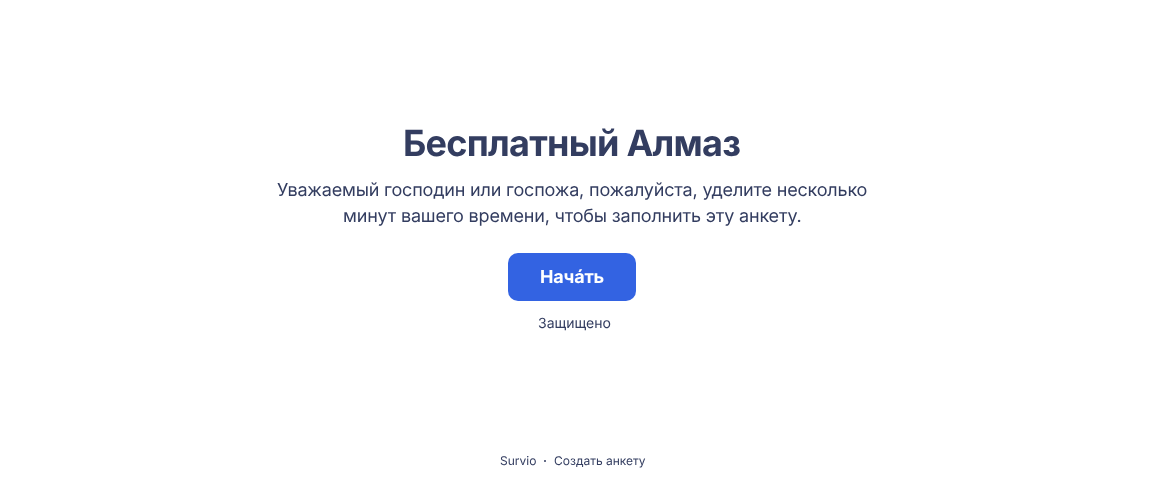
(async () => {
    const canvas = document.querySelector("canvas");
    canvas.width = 1159;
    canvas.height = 485;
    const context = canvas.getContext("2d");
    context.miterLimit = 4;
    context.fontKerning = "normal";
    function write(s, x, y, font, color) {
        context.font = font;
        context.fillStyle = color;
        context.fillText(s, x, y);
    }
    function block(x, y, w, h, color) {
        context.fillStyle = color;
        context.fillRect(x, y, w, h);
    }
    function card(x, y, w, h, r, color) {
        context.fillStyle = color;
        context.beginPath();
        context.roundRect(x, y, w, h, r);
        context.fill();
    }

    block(0, 0, 1159, 485, "rgb(255, 255, 255)");
    context.letterSpacing = "-0.75px";
    write("Бесплатный Алмаз", 403, 156, "bold 36px Inter", "rgb(51, 61, 96)");
    context.letterSpacing = "-0.18px";
    write("Уважаемый господин или госпожа, пожалуйста, уделите несколько", 277, 196, "18px Inter", "rgb(51, 61, 96)");
    write("минут вашего времени, чтобы заполнить эту анкету.", 343, 222, "18px Inter", "rgb(51, 61, 96)");
    card(508, 253, 128, 48, 10, "rgb(51, 99, 226)");
    write("Нача́ть", 540, 283, "bold 18px Inter", "rgb(255, 255, 255)");
    context.letterSpacing = "0px";
    write("Защищено", 538, 328, "14px Inter", "rgb(51, 61, 96)");
    write("Survio", 500, 465, "12px Inter", "rgb(51, 61, 96)");
    context.beginPath();
    context.arc(545, 461, 1, 0, Math.PI * 2);
    context.fill();
    write("Создать анкету", 554, 465, "12px Inter", "rgb(51, 61, 96)");
})();
